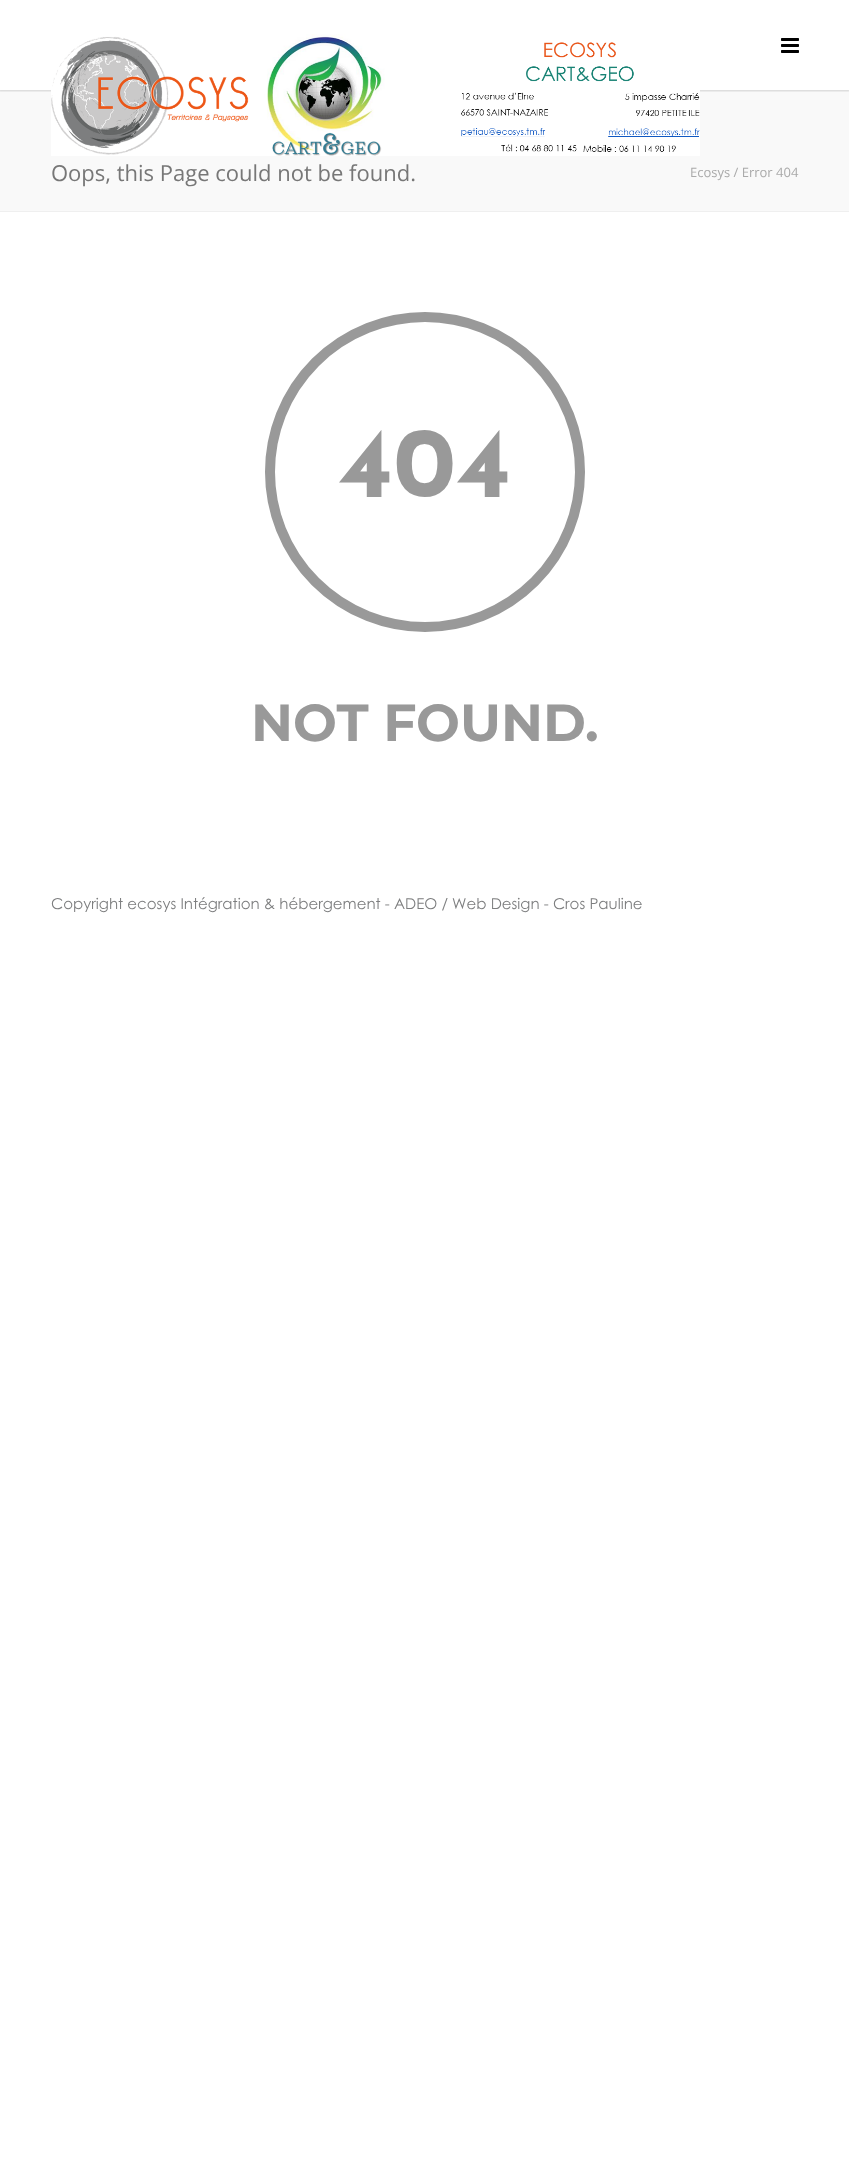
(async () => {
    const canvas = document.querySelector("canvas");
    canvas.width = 849;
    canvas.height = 2161;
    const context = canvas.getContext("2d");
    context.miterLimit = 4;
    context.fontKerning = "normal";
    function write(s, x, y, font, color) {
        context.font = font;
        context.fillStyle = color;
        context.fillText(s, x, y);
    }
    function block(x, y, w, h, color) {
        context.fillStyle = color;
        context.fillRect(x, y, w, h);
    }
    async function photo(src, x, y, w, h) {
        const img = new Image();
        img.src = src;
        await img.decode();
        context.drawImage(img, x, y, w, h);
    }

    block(0, 0, 849, 2161, "rgb(255, 255, 255)");
    block(0, 90, 849, 121, "rgb(249, 249, 249)");
    context.save();
    context.beginPath();
    context.rect(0, 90, 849, 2);
    context.clip();
    context.fillStyle = "rgba(0, 0, 0, 0.16)";
    context.filter = "blur(1px)";
    context.beginPath();
    context.rect(-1, -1, 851, 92);
    context.fill();
    context.filter = "none";
    context.restore();
    await photo("media/1.png", 51, 34, 649, 122);
    await photo("media/2.png", 781, 38, 18, 15);
    block(0, 211, 849, 1, "rgb(239, 239, 239)");
    write("Oops, this Page could not be found.", 51, 181, "22px Open Sans", "rgb(119, 119, 119)");
    write("Ecosys / Error 404", 690, 177, "13px Open Sans", "rgb(170, 170, 170)");
    context.beginPath();
    context.arc(425, 472, 155, 0, Math.PI * 2);
    context.strokeStyle = "rgb(153, 153, 153)";
    context.lineWidth = 10;
    context.stroke();
    write("404", 338, 497, "bold 100px Josefin Sans", "rgb(153, 153, 153)");
    write("NOT FOUND.", 251, 741, "bold 52px Montserrat", "rgb(153, 153, 153)");
    write("Copyright ecosys Intégration & hébergement - ADEO / Web Design - Cros Pauline", 51, 909, "15px Century Gothic", "rgb(125, 126, 127)");
})();
